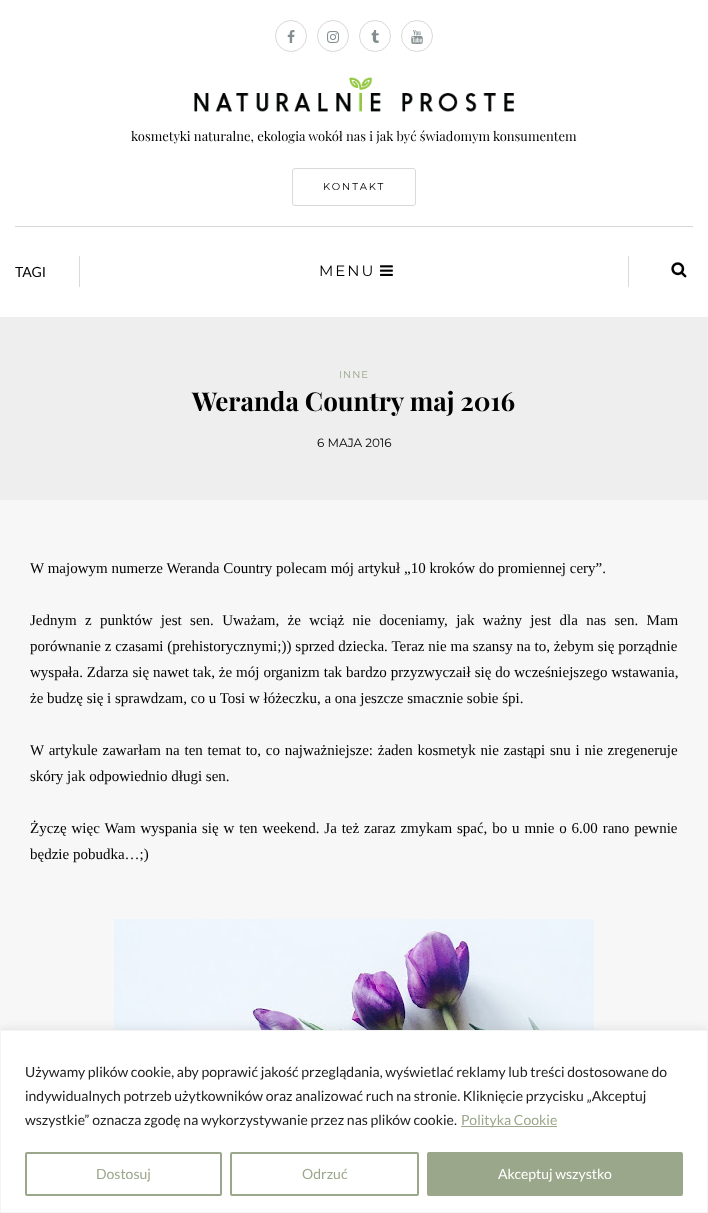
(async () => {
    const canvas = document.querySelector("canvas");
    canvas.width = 708;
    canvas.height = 1213;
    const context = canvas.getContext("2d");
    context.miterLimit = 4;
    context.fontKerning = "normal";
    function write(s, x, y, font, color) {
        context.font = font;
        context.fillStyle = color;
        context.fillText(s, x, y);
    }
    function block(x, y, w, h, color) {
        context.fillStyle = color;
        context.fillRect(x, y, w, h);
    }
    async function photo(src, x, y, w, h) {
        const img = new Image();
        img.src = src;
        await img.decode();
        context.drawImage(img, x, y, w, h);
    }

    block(0, 0, 708, 1213, "rgb(247, 247, 247)");
    block(0, 0, 708, 317, "rgb(255, 255, 255)");
    context.beginPath();
    context.arc(291, 36, 15.5, 0, Math.PI * 2);
    context.strokeStyle = "rgb(217, 217, 217)";
    context.stroke();
    await photo("media/1.png", 287, 30, 8, 13);
    context.beginPath();
    context.arc(333, 36, 15.5, 0, Math.PI * 2);
    context.stroke();
    await photo("media/2.png", 327, 31, 12, 12);
    context.beginPath();
    context.arc(375, 36, 15.5, 0, Math.PI * 2);
    context.stroke();
    await photo("media/3.png", 371, 30, 8, 13);
    context.beginPath();
    context.arc(417, 36, 15.5, 0, Math.PI * 2);
    context.stroke();
    await photo("media/4.png", 411, 30, 12, 14);
    await photo("media/5.png", 194, 77, 320, 35);
    write("kosmetyki naturalne, ekologia wokół nas i jak być świadomym konsumentem", 131, 141, "13px Playfair Display", "rgb(0, 0, 0)");
    context.beginPath();
    context.roundRect(292.5, 168.5, 123, 37, 2.5);
    context.stroke();
    context.letterSpacing = "2px";
    write("KONTAKT", 323, 190, "100 10px Montserrat", "rgb(0, 0, 0)");
    block(15, 226, 678, 1, "rgb(217, 217, 217)");
    block(79, 256, 1, 31, "rgb(217, 217, 217)");
    context.letterSpacing = "0px";
    write("TAGI", 15, 277, "14px Lato", "rgb(0, 0, 0)");
    context.letterSpacing = "2px";
    write("MENU", 319, 276, "100 15px Montserrat", "rgb(0, 0, 0)");
    await photo("media/6.png", 380, 265, 13, 11);
    block(628, 256, 1, 31, "rgb(217, 217, 217)");
    await photo("media/7.png", 671, 262, 16, 16);
    block(0, 317, 708, 183, "rgb(238, 238, 238)");
    context.letterSpacing = "1px";
    write("INNE", 339, 378, "100 10px Montserrat", "rgb(155, 167, 138)");
    context.letterSpacing = "0px";
    write("Weranda Country maj 2016", 192, 411, "bold 26px Playfair Display", "rgb(0, 0, 0)");
    write("6 MAJA 2016", 317, 447, "100 12px Montserrat", "rgb(0, 0, 0)");
    write("W majowym numerze Weranda Country polecam mój artykuł „10 kroków do promiennej cery”.", 30, 573, "15px Liberation Serif", "rgb(0, 0, 0)");
    context.wordSpacing = "4.6px";
    write("Jednym z punktów jest sen. Uważam, że wciąż nie doceniamy, jak ważny jest dla nas sen. Mam", 30, 625, "15px Liberation Serif", "rgb(0, 0, 0)");
    context.wordSpacing = "0.1px";
    write("porównanie z czasami (prehistorycznymi;)) sprzed dziecka. Teraz nie ma szansy na to, żebym się porządnie", 30, 651, "15px Liberation Serif", "rgb(0, 0, 0)");
    context.wordSpacing = "0.2px";
    write("wyspała. Zdarza się nawet tak, że mój organizm tak bardzo przyzwyczaił się do wcześniejszego wstawania,", 30, 677, "15px Liberation Serif", "rgb(0, 0, 0)");
    context.wordSpacing = "0px";
    write("że budzę się i sprawdzam, co u Tosi w łóżeczku, a ona jeszcze smacznie sobie śpi.", 30, 703, "15px Liberation Serif", "rgb(0, 0, 0)");
    context.wordSpacing = "1px";
    write("W artykule zawarłam na ten temat to, co najważniejsze: żaden kosmetyk nie zastąpi snu i nie zregeneruje", 30, 755, "15px Liberation Serif", "rgb(0, 0, 0)");
    context.wordSpacing = "0px";
    write("skóry jak odpowiednio długi sen.", 30, 781, "15px Liberation Serif", "rgb(0, 0, 0)");
    context.wordSpacing = "1.1px";
    write("Życzę więc Wam wyspania się w ten weekend. Ja też zaraz zmykam spać, bo u mnie o 6.00 rano pewnie", 30, 833, "15px Liberation Serif", "rgb(0, 0, 0)");
    context.wordSpacing = "0px";
    write("będzie pobudka…;)", 30, 859, "15px Liberation Serif", "rgb(0, 0, 0)");
    await photo("media/8.png", 114, 919, 480, 111);
    context.fillStyle = "rgba(172, 171, 171, 0.3)";
    context.filter = "blur(5px)";
    context.beginPath();
    context.rect(0, 1029, 708, 183);
    context.fill();
    context.filter = "none";
    context.fillStyle = "rgb(255, 255, 255)";
    context.beginPath();
    context.rect(0.5, 1030.5, 707, 182);
    context.fill();
    context.strokeStyle = "rgb(244, 244, 244)";
    context.stroke();
    write("Używamy plików cookie, aby poprawić jakość przeglądania, wyświetlać reklamy lub treści dostosowane do", 25, 1077, "14px Lato", "rgb(33, 33, 33)");
    write("indywidualnych potrzeb użytkowników oraz analizować ruch na stronie. Kliknięcie przycisku „Akceptuj", 25, 1101, "14px Lato", "rgb(33, 33, 33)");
    write("wszystkie” oznacza zgodę na wykorzystywanie przez nas plików cookie.", 25, 1125, "14px Lato", "rgb(33, 33, 33)");
    block(461, 1126, 96, 1, "rgb(155, 167, 138)");
    write("Polityka Cookie", 461, 1125, "14px Lato", "rgb(155, 167, 138)");
    context.beginPath();
    context.roundRect(26, 1153, 195, 42, 1);
    context.strokeStyle = "rgb(155, 167, 138)";
    context.lineWidth = 2;
    context.stroke();
    write("Dostosuj", 96, 1179, "14px Lato", "rgb(155, 167, 138)");
    context.beginPath();
    context.roundRect(231, 1153, 187, 42, 1);
    context.stroke();
    write("Odrzuć", 302, 1179, "14px Lato", "rgb(155, 167, 138)");
    context.beginPath();
    context.roundRect(428, 1153, 254, 42, 1);
    context.fill();
    context.stroke();
    write("Akceptuj wszystko", 498, 1179, "14px Lato", "rgb(255, 255, 255)");
})();
